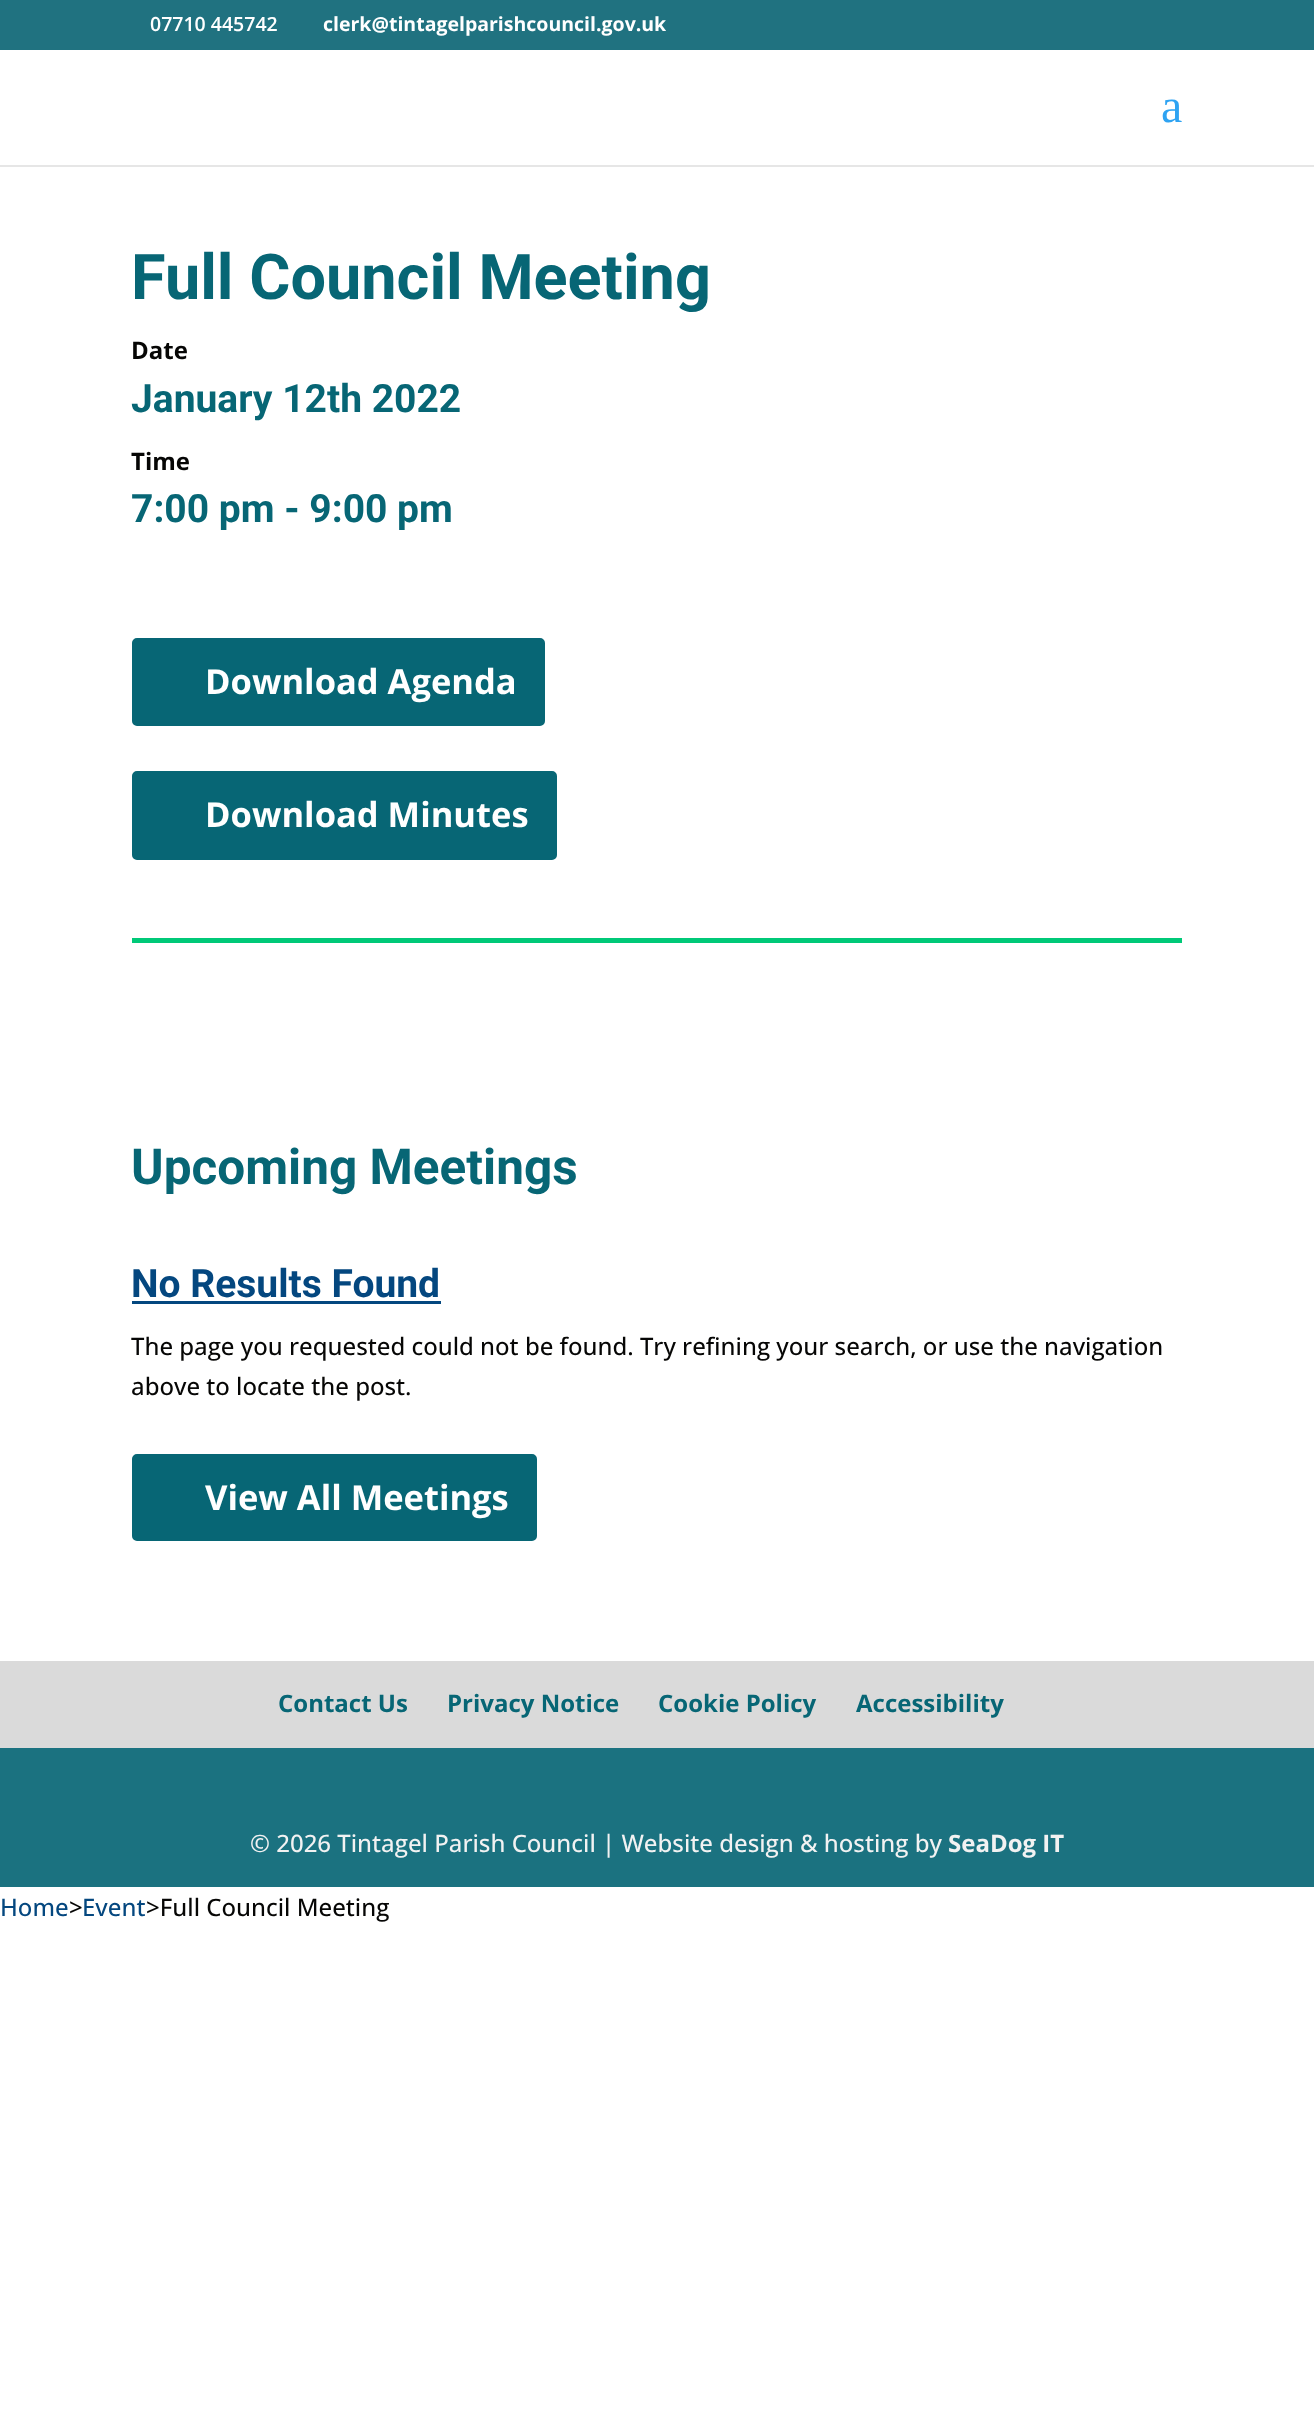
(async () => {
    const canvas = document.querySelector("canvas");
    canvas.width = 1314;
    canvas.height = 2420;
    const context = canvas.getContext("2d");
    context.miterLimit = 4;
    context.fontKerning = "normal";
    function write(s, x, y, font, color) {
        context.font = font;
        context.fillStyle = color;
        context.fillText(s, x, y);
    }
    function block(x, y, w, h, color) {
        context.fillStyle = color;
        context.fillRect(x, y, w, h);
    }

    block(0, 0, 1314, 2420, "rgb(255, 255, 255)");
    block(0, 0, 1314, 50, "rgb(32, 114, 128)");
    write("07710 445742", 150, 31, "600 19.5px Open Sans", "rgb(255, 255, 255)");
    write("clerk@tintagelparishcouncil.gov.uk", 323, 31, "bold 19.5px Open Sans", "rgb(255, 255, 255)");
    block(0, 165, 1314, 2, "rgb(230, 230, 230)");
    write("a", 1161, 122, "48px Liberation Serif", "rgb(46, 163, 242)");
    block(132, 938, 1050, 5, "rgb(0, 201, 120)");
    write("Full Council Meeting", 131, 299, "bold 63px Roboto", "rgb(7, 102, 117)");
    write("Date", 131, 359, "bold 24px Open Sans", "rgb(6, 6, 5)");
    write("January 12th 2022", 131, 412, "bold 39px Roboto", "rgb(7, 102, 117)");
    write("Time", 131, 470, "bold 24px Open Sans", "rgb(6, 6, 5)");
    write("7:00 pm - 9:00 pm", 131, 522, "bold 39px Roboto", "rgb(7, 102, 117)");
    context.beginPath();
    context.roundRect(134.5, 640.5, 408, 83, 2.5);
    context.fill();
    context.strokeStyle = "rgb(7, 102, 117)";
    context.lineWidth = 5;
    context.stroke();
    write("Download Agenda", 205, 694, "bold 34.5px Open Sans", "rgb(255, 255, 255)");
    context.fillStyle = "rgb(7, 102, 117)";
    context.beginPath();
    context.roundRect(134.5, 773.5, 420, 84, 2.5);
    context.fill();
    context.stroke();
    write("Download Minutes", 205, 827, "bold 34.5px Open Sans", "rgb(255, 255, 255)");
    write("Upcoming Meetings", 131, 1184, "bold 49.5px Roboto", "rgb(7, 102, 117)");
    write("No Results Found", 131, 1297, "bold 39px Roboto", "rgb(4, 71, 127)");
    block(132, 1301, 309, 3, "rgb(4, 71, 127)");
    write("The page you requested could not be found. Try refining your search, or use the navigation", 131, 1355, "500 24px Open Sans", "rgb(6, 6, 5)");
    write("above to locate the post.", 131, 1395, "500 24px Open Sans", "rgb(6, 6, 5)");
    context.fillStyle = "rgb(7, 102, 117)";
    context.beginPath();
    context.roundRect(134.5, 1456.5, 400, 82, 2.5);
    context.fill();
    context.stroke();
    write("View All Meetings", 205, 1510, "bold 34.5px Open Sans", "rgb(255, 255, 255)");
    block(0, 1661, 1314, 87, "rgb(218, 218, 218)");
    write("Contact Us", 278, 1712, "bold 24px Open Sans", "rgb(7, 102, 117)");
    write("Privacy Notice", 447, 1712, "bold 24px Open Sans", "rgb(7, 102, 117)");
    write("Cookie Policy", 658, 1712, "bold 24px Open Sans", "rgb(7, 102, 117)");
    write("Accessibility", 856, 1712, "bold 24px Open Sans", "rgb(7, 102, 117)");
    block(0, 1748, 1314, 139, "rgb(27, 114, 128)");
    write("© 2026 Tintagel Parish Council | Website design & hosting by", 250, 1852, "500 24px Open Sans", "rgb(242, 242, 242)");
    write("SeaDog IT", 948, 1852, "bold 24px Open Sans", "rgb(242, 242, 242)");
    write("Home", 0, 1916, "500 24px Open Sans", "rgb(4, 71, 127)");
    write(">", 69, 1916, "500 24px Open Sans", "rgb(6, 6, 5)");
    write("Event", 82, 1916, "500 24px Open Sans", "rgb(4, 71, 127)");
    write(">Full Council Meeting", 146, 1916, "500 24px Open Sans", "rgb(6, 6, 5)");
})();
